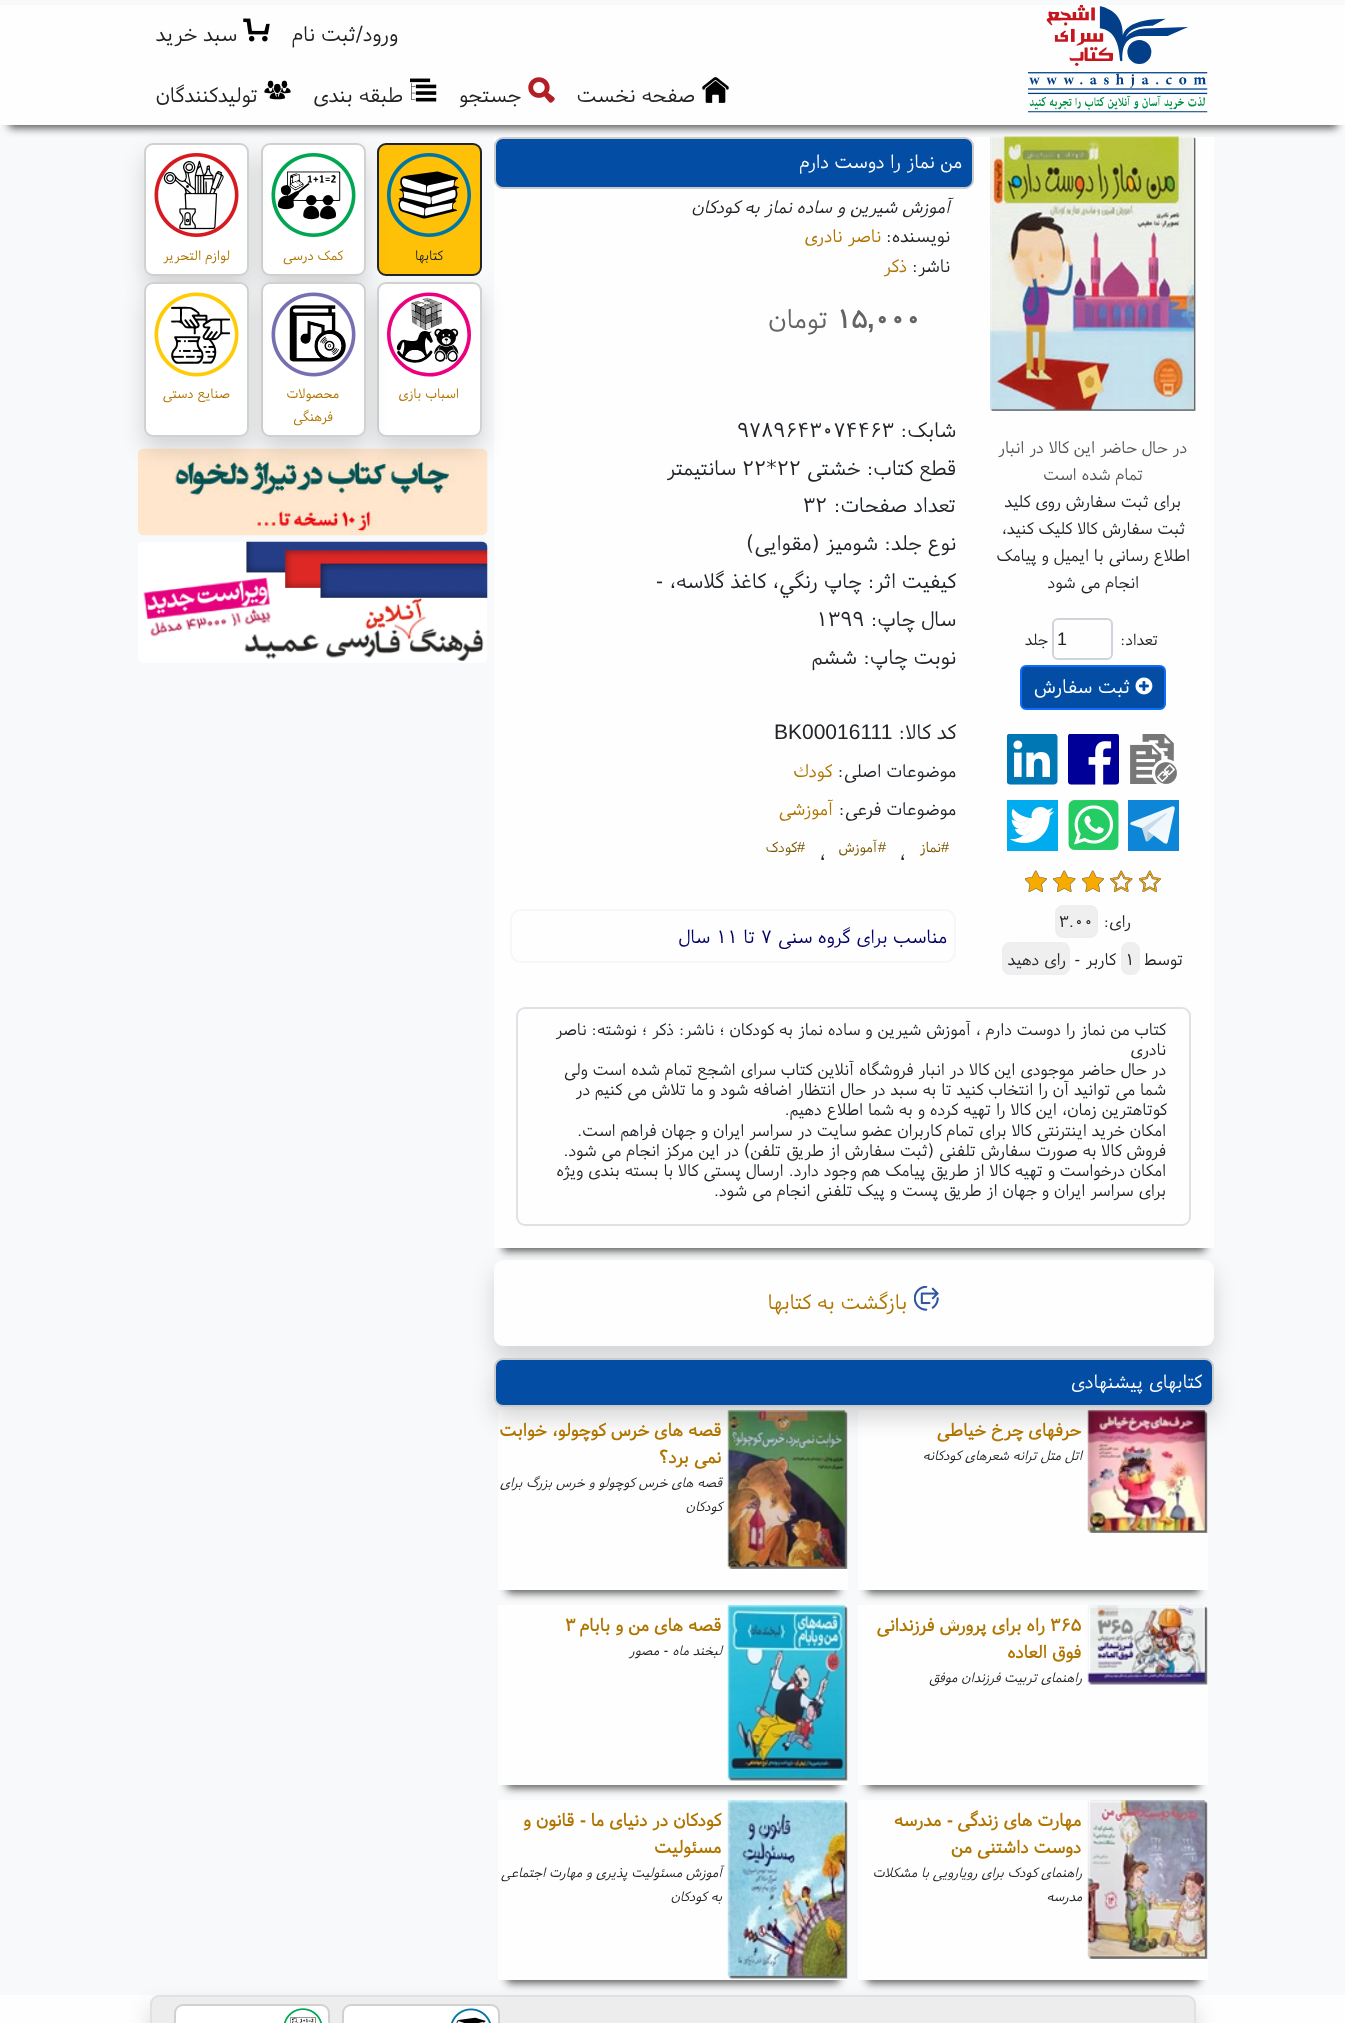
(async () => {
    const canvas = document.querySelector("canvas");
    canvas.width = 1345;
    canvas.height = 2023;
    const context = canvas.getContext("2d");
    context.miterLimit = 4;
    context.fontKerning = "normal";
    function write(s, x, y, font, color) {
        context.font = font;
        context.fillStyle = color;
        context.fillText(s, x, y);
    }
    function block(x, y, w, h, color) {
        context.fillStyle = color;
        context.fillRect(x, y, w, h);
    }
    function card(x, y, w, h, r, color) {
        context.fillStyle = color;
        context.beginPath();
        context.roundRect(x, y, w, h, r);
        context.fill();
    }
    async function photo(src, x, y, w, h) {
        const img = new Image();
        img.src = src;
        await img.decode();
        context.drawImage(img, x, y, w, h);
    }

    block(0, 0, 1345, 2023, "rgb(248, 249, 250)");
    context.fillStyle = "rgb(85, 85, 85)";
    context.filter = "blur(4.5px)";
    context.beginPath();
    context.rect(9, 26, 1328, 102);
    context.fill();
    context.filter = "none";
    block(0, 5, 1345, 120, "rgb(254, 254, 254)");
    await photo("media/1.png", 1028, 5, 180, 108);
    context.direction = "rtl";
    write("ورود/ثبت نام", 398, 41, "21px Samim", "rgb(34, 34, 34)");
    await photo("media/2.png", 243, 18, 27, 24);
    write("سبد خرید", 237, 41, "21px Samim", "rgb(34, 34, 34)");
    await photo("media/3.png", 702, 77, 27, 26);
    write("صفحه نخست", 695, 102, "21px Samim", "rgb(34, 34, 34)");
    await photo("media/4.png", 528, 77, 27, 26);
    write("جستجو", 521, 102, "21px Samim", "rgb(34, 34, 34)");
    await photo("media/5.png", 410, 78, 27, 24);
    write("طبقه بندی", 403, 102, "21px Samim", "rgb(34, 34, 34)");
    await photo("media/6.png", 264, 80, 27, 20);
    write("تولیدکنندگان", 258, 102, "21px Samim", "rgb(34, 34, 34)");
    context.fillStyle = "rgb(85, 85, 85)";
    context.filter = "blur(4.5px)";
    context.beginPath();
    context.rect(503, 158, 702, 1093);
    context.fill();
    context.filter = "none";
    block(494, 137, 720, 1111, "rgb(254, 254, 254)");
    await photo("media/7.png", 990, 136, 206, 275);
    context.fillStyle = "rgb(3, 77, 164)";
    context.beginPath();
    context.roundRect(495, 138, 478, 50, 8);
    context.fill();
    context.strokeStyle = "rgb(204, 204, 204)";
    context.lineWidth = 2;
    context.stroke();
    write("من نماز را دوست دارم", 962, 168, "19px Samim", "rgb(255, 255, 255)");
    write("آموزش شیرین و ساده نماز به کودکان", 950, 213, "italic 18px Samim", "rgb(33, 37, 41)");
    write("نویسنده:", 950, 242, "18px Samim", "rgb(33, 37, 41)");
    write("ناصر نادری", 881, 242, "18px Samim", "rgb(176, 117, 0)");
    write("ناشر:", 950, 272, "18px Samim", "rgb(33, 37, 41)");
    write("ذکر", 907, 272, "18px Samim", "rgb(176, 117, 0)");
    context.direction = "ltr";
    write("۰۰۰", 874, 328, "bold 27px Samim", "rgb(99, 100, 100)");
    write("۱۵", 836, 328, "bold 27px Samim", "rgb(99, 100, 100)");
    context.direction = "rtl";
    write("تومان", 828, 328, "27px Samim", "rgb(99, 100, 100)");
    context.direction = "ltr";
    write(",", 867, 328, "bold 27px Liberation Sans", "rgb(99, 100, 100)");
    context.direction = "rtl";
    write("در حال حاضر این کالا در انبار", 1187, 453, "16.8px Samim", "rgb(86, 86, 85)");
    write("تمام شده است", 1143, 480, "16.8px Samim", "rgb(86, 86, 85)");
    write("برای ثبت سفارش روی کلید", 1181, 507, "16.8px Samim", "rgb(33, 37, 41)");
    write("ثبت سفارش کالا کلیک کنید،", 1185, 534, "16.8px Samim", "rgb(33, 37, 41)");
    write("اطلاع رسانی با ایمیل و پیامک", 1190, 561, "16.8px Samim", "rgb(33, 37, 41)");
    write("انجام می شود", 1139, 588, "16.8px Samim", "rgb(33, 37, 41)");
    write("تعداد:", 1158, 645, "16px Samim", "rgb(33, 37, 41)");
    context.beginPath();
    context.roundRect(1053, 619, 59, 40, 5);
    context.strokeStyle = "rgb(206, 212, 218)";
    context.stroke();
    context.direction = "ltr";
    write("1", 1057, 645, "18px Liberation Sans", "rgb(33, 37, 41)");
    context.direction = "rtl";
    write("جلد", 1048, 645, "16px Samim", "rgb(33, 37, 41)");
    context.fillStyle = "rgb(3, 77, 164)";
    context.beginPath();
    context.roundRect(1021, 666, 144, 43, 5);
    context.fill();
    context.strokeStyle = "rgb(13, 110, 253)";
    context.stroke();
    await photo("media/8.png", 1135, 677, 18, 18);
    write("ثبت سفارش", 1130, 693, "19.5px Samim", "rgb(255, 255, 255)");
    await photo("media/9.png", 1130, 734, 47, 50);
    await photo("media/10.png", 1068, 734, 51, 51);
    await photo("media/11.png", 1007, 734, 51, 51);
    await photo("media/12.png", 1128, 800, 51, 51);
    await photo("media/13.png", 1068, 800, 51, 50);
    await photo("media/14.png", 1007, 800, 51, 51);
    await photo("media/15.png", 1139, 870, 22, 22);
    await photo("media/16.png", 1110, 870, 23, 22);
    await photo("media/17.png", 1082, 870, 22, 22);
    await photo("media/18.png", 1053, 870, 23, 22);
    await photo("media/17.png", 1025, 870, 22, 22);
    write("رای:", 1131, 927, "16.8px Samim", "rgb(33, 37, 41)");
    context.fillStyle = "rgb(239, 239, 239)";
    context.beginPath();
    context.roundRect(1056, 906, 41, 31, 7);
    context.fill();
    context.strokeStyle = "rgb(238, 238, 238)";
    context.stroke();
    context.direction = "ltr";
    write("۳.۰۰", 1059, 927, "16.8px Samim", "rgb(33, 37, 41)");
    context.direction = "rtl";
    write("توسط", 1183, 965, "16.8px Samim", "rgb(33, 37, 41)");
    context.fillStyle = "rgb(239, 239, 239)";
    context.beginPath();
    context.roundRect(1122, 943, 17, 31, 7);
    context.fill();
    context.stroke();
    context.direction = "ltr";
    write("۱", 1125, 965, "16.8px Samim", "rgb(33, 37, 41)");
    context.direction = "rtl";
    write("کاربر", 1116, 965, "16.8px Samim", "rgb(33, 37, 41)");
    write("-", 1080, 965, "16.8px Liberation Sans", "rgb(33, 37, 41)");
    context.fillStyle = "rgb(239, 239, 239)";
    context.beginPath();
    context.roundRect(1003, 943, 66, 31, 7);
    context.fill();
    context.stroke();
    write("رای دهید", 1066, 965, "16.8px Samim", "rgb(33, 37, 41)");
    write("شابک:", 956, 437, "21px Samim", "rgb(33, 37, 41)");
    context.direction = "ltr";
    write("۹۷۸۹۶۴۳۰۷۴۴۶۳", 737, 437, "21px Samim", "rgb(33, 37, 41)");
    context.direction = "rtl";
    write("قطع کتاب: خشتی", 956, 475, "21px Samim", "rgb(33, 37, 41)");
    context.direction = "ltr";
    write("۲۲*۲۲", 742, 475, "21px Samim", "rgb(33, 37, 41)");
    context.direction = "rtl";
    write("سانتیمتر", 736, 475, "21px Samim", "rgb(33, 37, 41)");
    write("تعداد صفحات:", 956, 512, "21px Samim", "rgb(33, 37, 41)");
    context.direction = "ltr";
    write("۳۲", 803, 512, "21px Samim", "rgb(33, 37, 41)");
    context.direction = "rtl";
    write("نوع جلد: شومیز (مقوایی)", 956, 550, "21px Samim", "rgb(33, 37, 41)");
    write("کیفیت اثر: چاپ رنگي، کاغذ گلاسه،", 956, 588, "21px Samim", "rgb(33, 37, 41)");
    write("-", 663, 588, "21px Liberation Sans", "rgb(33, 37, 41)");
    write("سال چاپ:", 956, 626, "21px Samim", "rgb(33, 37, 41)");
    context.direction = "ltr";
    write("۱۳۹۹", 816, 626, "21px Samim", "rgb(33, 37, 41)");
    context.direction = "rtl";
    write("نوبت چاپ: ششم", 956, 664, "21px Samim", "rgb(33, 37, 41)");
    write("کد کالا:", 956, 739, "21px Samim", "rgb(33, 37, 41)");
    context.direction = "ltr";
    write("BK00016111", 774, 739, "21px Liberation Sans", "rgb(33, 37, 41)");
    context.direction = "rtl";
    write("موضوعات اصلی:", 956, 777, "18px Samim", "rgb(33, 37, 41)");
    write("كودك", 832, 777, "18px Samim", "rgb(176, 117, 0)");
    write("موضوعات فرعی:", 956, 815, "18px Samim", "rgb(33, 37, 41)");
    write("آموزشی", 833, 815, "18px Samim", "rgb(176, 117, 0)");
    write("#", 949, 852, "14.5px Liberation Sans", "rgb(123, 87, 0)");
    write("نماز", 941, 852, "14.5px Samim", "rgb(123, 87, 0)");
    write("آموزش", 877, 852, "14.5px Samim", "rgb(123, 87, 0)");
    write("#", 886, 852, "14.5px Liberation Sans", "rgb(123, 87, 0)");
    write("کودک", 797, 852, "14.5px Samim", "rgb(123, 87, 0)");
    write("#", 805, 852, "14.5px Liberation Sans", "rgb(123, 87, 0)");
    context.direction = "ltr";
    write("،", 899, 860, "21px Samim", "rgb(33, 37, 41)");
    write("،", 819, 860, "21px Samim", "rgb(33, 37, 41)");
    context.beginPath();
    context.roundRect(511, 910, 444, 52, 10);
    context.strokeStyle = "rgb(247, 247, 248)";
    context.stroke();
    context.direction = "rtl";
    write("مناسب برای", 947, 943, "19px Samim", "rgb(0, 0, 102)");
    write("گروه سنی", 850, 943, "19px Samim", "rgb(0, 0, 102)");
    context.direction = "ltr";
    write("۷", 761, 943, "19px Samim", "rgb(0, 0, 102)");
    context.direction = "rtl";
    write("تا", 755, 943, "19px Samim", "rgb(0, 0, 102)");
    context.direction = "ltr";
    write("۱۱", 716, 943, "19px Samim", "rgb(0, 0, 102)");
    context.direction = "rtl";
    write("سال", 710, 943, "19px Samim", "rgb(0, 0, 102)");
    context.beginPath();
    context.roundRect(517, 1008, 673, 217, 8);
    context.strokeStyle = "rgb(222, 226, 230)";
    context.stroke();
    write("کتاب من نماز را دوست دارم ، آموزش شیرین و ساده نماز به کودکان ؛ ناشر: ذکر ؛ نوشته: ناصر", 1166, 1035, "16.8px Samim", "rgb(33, 37, 41)");
    write("نادری", 1166, 1055, "16.8px Samim", "rgb(33, 37, 41)");
    write("در حال حاضر موجودی این کالا در انبار فروشگاه آنلاین کتاب سرای اشجع تمام شده است ولی", 1166, 1075, "16.8px Samim", "rgb(33, 37, 41)");
    write("شما می توانید آن را انتخاب کنید تا به سبد در حال انتظار اضافه شود و ما تلاش می کنیم در", 1166, 1095, "16.8px Samim", "rgb(33, 37, 41)");
    write("کوتاهترین زمان، این کالا را تهیه کرده و به شما اطلاع دهیم.", 1167, 1115, "16.8px Samim", "rgb(33, 37, 41)");
    write("امکان خرید اینترنتی کالا برای تمام کاربران عضو سایت در سراسر ایران و جهان فراهم است.", 1166, 1136, "16.8px Samim", "rgb(33, 37, 41)");
    write("فروش کالا به صورت سفارش تلفنی (ثبت سفارش از طریق تلفن) در این مرکز انجام می شود.", 1166, 1156, "16.8px Samim", "rgb(33, 37, 41)");
    write("امکان درخواست و تهیه کالا از طریق پیامک هم وجود دارد. ارسال پستی کالا با بسته بندی ویژه", 1166, 1176, "16.8px Samim", "rgb(33, 37, 41)");
    write("برای سراسر ایران و جهان از طریق پست و پیک تلفنی انجام می شود.", 1166, 1196, "16.8px Samim", "rgb(33, 37, 41)");
    context.fillStyle = "rgba(0, 0, 0, 0.15)";
    context.filter = "blur(11px)";
    context.beginPath();
    context.roundRect(494, 1272, 720, 86, 9);
    context.fill();
    context.filter = "none";
    context.fillStyle = "rgb(254, 254, 254)";
    context.beginPath();
    context.roundRect(495, 1261, 718, 84, 8);
    context.fill();
    context.strokeStyle = "rgb(253, 253, 254)";
    context.stroke();
    await photo("media/19.png", 914, 1286, 25, 25);
    write("بازگشت به کتابها", 907, 1309, "21px Samim", "rgb(176, 117, 0)");
    context.fillStyle = "rgb(85, 85, 85)";
    context.filter = "blur(4.5px)";
    context.beginPath();
    context.rect(867, 1431, 332, 162);
    context.fill();
    context.filter = "none";
    block(858, 1410, 350, 180, "rgb(254, 254, 254)");
    await photo("media/20.png", 1087, 1410, 121, 123);
    context.fillStyle = "rgb(85, 85, 85)";
    context.filter = "blur(4.5px)";
    context.beginPath();
    context.rect(507, 1431, 332, 162);
    context.fill();
    context.filter = "none";
    block(498, 1410, 350, 180, "rgb(254, 254, 254)");
    await photo("media/21.png", 727, 1410, 121, 159);
    context.fillStyle = "rgba(0, 0, 0, 0.15)";
    context.filter = "blur(11px)";
    context.beginPath();
    context.roundRect(494, 1370, 720, 49, 9);
    context.fill();
    context.filter = "none";
    context.fillStyle = "rgb(3, 77, 164)";
    context.beginPath();
    context.roundRect(495, 1359, 718, 47, 8);
    context.fill();
    context.strokeStyle = "rgb(204, 204, 204)";
    context.stroke();
    write("کتابهای پیشنهادی", 1202, 1388, "19px Samim", "rgb(255, 255, 255)");
    write("حرفهای چرخ خیاطی", 1081, 1436, "bold 18px Samim", "rgb(176, 117, 0)");
    write("اتل متل ترانه شعرهای کودکانه", 1082, 1460, "italic 13.6px Samim", "rgb(33, 37, 41)");
    write("قصه های خرس کوچولو، خوابت", 721, 1436, "bold 18px Samim", "rgb(176, 117, 0)");
    write("نمی برد؟", 721, 1463, "bold 18px Samim", "rgb(176, 117, 0)");
    write("قصه های خرس کوچولو و خرس بزرگ برای", 722, 1487, "italic 13.6px Samim", "rgb(33, 37, 41)");
    write("کودکان", 722, 1511, "italic 13.6px Samim", "rgb(33, 37, 41)");
    context.fillStyle = "rgb(85, 85, 85)";
    context.filter = "blur(4.5px)";
    context.beginPath();
    context.rect(867, 1626, 332, 162);
    context.fill();
    context.filter = "none";
    block(858, 1605, 350, 180, "rgb(254, 254, 254)");
    await photo("media/22.png", 1087, 1605, 121, 80);
    context.direction = "ltr";
    write("۳۶۵", 1050, 1631, "bold 18px Samim", "rgb(176, 117, 0)");
    context.direction = "rtl";
    write("راه برای پرورش فرزندانی", 1045, 1631, "bold 18px Samim", "rgb(176, 117, 0)");
    write("فوق العاده", 1081, 1658, "bold 18px Samim", "rgb(176, 117, 0)");
    write("راهنمای تربیت فرزندان موفق", 1082, 1682, "italic 13.6px Samim", "rgb(33, 37, 41)");
    context.fillStyle = "rgb(85, 85, 85)";
    context.filter = "blur(4.5px)";
    context.beginPath();
    context.rect(507, 1626, 332, 162);
    context.fill();
    context.filter = "none";
    block(498, 1605, 350, 180, "rgb(254, 254, 254)");
    await photo("media/23.png", 727, 1605, 121, 176);
    write("قصه های من و بابام", 721, 1631, "bold 18px Samim", "rgb(176, 117, 0)");
    context.direction = "ltr";
    write("۳", 565, 1631, "bold 18px Samim", "rgb(176, 117, 0)");
    context.direction = "rtl";
    write("لبخند ماه", 722, 1655, "italic 13.6px Samim", "rgb(33, 37, 41)");
    write("-", 668, 1655, "italic 13.6px Liberation Sans", "rgb(33, 37, 41)");
    write("مصور", 659, 1655, "italic 13.6px Samim", "rgb(33, 37, 41)");
    block(0, 1995, 1345, 28, "rgb(254, 254, 254)");
    context.fillStyle = "rgba(0, 0, 0, 0.15)";
    context.filter = "blur(11px)";
    context.beginPath();
    context.roundRect(150, 2007, 1046, 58, 9);
    context.fill();
    context.filter = "none";
    context.fillStyle = "rgb(237, 237, 237)";
    context.beginPath();
    context.roundRect(151, 1996, 1044, 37, 8);
    context.fill();
    context.strokeStyle = "rgb(222, 226, 230)";
    context.stroke();
    context.fillStyle = "rgb(85, 85, 85)";
    context.filter = "blur(4.5px)";
    context.beginPath();
    context.rect(867, 1821, 332, 162);
    context.fill();
    context.filter = "none";
    block(858, 1800, 350, 180, "rgb(254, 254, 254)");
    await photo("media/24.png", 1087, 1800, 121, 159);
    write("مهارت های زندگی", 1081, 1826, "bold 18px Samim", "rgb(176, 117, 0)");
    write("-", 953, 1826, "bold 18px Liberation Sans", "rgb(176, 117, 0)");
    write("مدرسه", 941, 1826, "bold 18px Samim", "rgb(176, 117, 0)");
    write("دوست داشتنی من", 1081, 1853, "bold 18px Samim", "rgb(176, 117, 0)");
    write("راهنمای کودک برای رویارویی با مشکلات", 1082, 1877, "italic 13.6px Samim", "rgb(33, 37, 41)");
    write("مدرسه", 1082, 1901, "italic 13.6px Samim", "rgb(33, 37, 41)");
    context.fillStyle = "rgb(85, 85, 85)";
    context.filter = "blur(4.5px)";
    context.beginPath();
    context.rect(507, 1821, 332, 162);
    context.fill();
    context.filter = "none";
    block(498, 1800, 350, 180, "rgb(254, 254, 254)");
    await photo("media/25.png", 727, 1800, 121, 179);
    write("کودکان در دنیای ما", 721, 1826, "bold 18px Samim", "rgb(176, 117, 0)");
    write("-", 586, 1826, "bold 18px Liberation Sans", "rgb(176, 117, 0)");
    write("قانون و", 574, 1826, "bold 18px Samim", "rgb(176, 117, 0)");
    write("مسئولیت", 721, 1853, "bold 18px Samim", "rgb(176, 117, 0)");
    write("آموزش مسئولیت پذیری و مهارت اجتماعی", 722, 1877, "italic 13.6px Samim", "rgb(33, 37, 41)");
    write("به کودکان", 722, 1901, "italic 13.6px Samim", "rgb(33, 37, 41)");
    context.fillStyle = "rgb(255, 193, 7)";
    context.beginPath();
    context.roundRect(378, 144, 103, 131, 8);
    context.fill();
    context.strokeStyle = "rgb(33, 37, 41)";
    context.stroke();
    await photo("media/26.png", 387, 153, 84, 84);
    write("کتابها", 443, 260, "13.6px Samim", "rgb(33, 37, 41)");
    context.fillStyle = "rgba(0, 0, 0, 0.15)";
    context.filter = "blur(11px)";
    context.beginPath();
    context.roundRect(261, 155, 105, 133, 9);
    context.fill();
    context.filter = "none";
    card(261, 143, 105, 133, 9, "rgb(255, 255, 255)");
    context.beginPath();
    context.roundRect(262, 144, 103, 131, 8);
    context.strokeStyle = "rgba(0, 0, 0, 0.18)";
    context.stroke();
    await photo("media/27.png", 271, 153, 85, 84);
    write("کمک درسی", 343, 260, "13.6px Samim", "rgb(176, 117, 0)");
    context.fillStyle = "rgba(0, 0, 0, 0.15)";
    context.filter = "blur(11px)";
    context.beginPath();
    context.roundRect(144, 155, 105, 133, 9);
    context.fill();
    context.filter = "none";
    card(144, 143, 105, 133, 9, "rgb(255, 255, 255)");
    context.beginPath();
    context.roundRect(145, 144, 103, 131, 8);
    context.stroke();
    await photo("media/28.png", 154, 153, 85, 84);
    write("لوازم التحریر", 230, 260, "13.6px Samim", "rgb(176, 117, 0)");
    await photo("media/32.png", 138, 448, 350, 88);
    context.fillStyle = "rgba(0, 0, 0, 0.15)";
    context.filter = "blur(11px)";
    context.beginPath();
    context.roundRect(377, 294, 105, 155, 9);
    context.fill();
    context.filter = "none";
    card(377, 282, 105, 155, 9, "rgb(255, 255, 255)");
    context.beginPath();
    context.roundRect(378, 283, 103, 153, 8);
    context.stroke();
    await photo("media/29.png", 386, 292, 85, 85);
    write("اسباب بازی", 459, 398, "13.6px Samim", "rgb(176, 117, 0)");
    context.fillStyle = "rgba(0, 0, 0, 0.15)";
    context.filter = "blur(11px)";
    context.beginPath();
    context.roundRect(261, 294, 105, 155, 9);
    context.fill();
    context.filter = "none";
    card(261, 282, 105, 155, 9, "rgb(255, 255, 255)");
    context.beginPath();
    context.roundRect(262, 283, 103, 153, 8);
    context.stroke();
    await photo("media/30.png", 271, 292, 85, 85);
    write("محصولات", 339, 398, "13.6px Samim", "rgb(176, 117, 0)");
    write("فرهنگی", 333, 421, "13.6px Samim", "rgb(176, 117, 0)");
    context.fillStyle = "rgba(0, 0, 0, 0.15)";
    context.filter = "blur(11px)";
    context.beginPath();
    context.roundRect(144, 294, 105, 155, 9);
    context.fill();
    context.filter = "none";
    card(144, 282, 105, 155, 9, "rgb(255, 255, 255)");
    context.beginPath();
    context.roundRect(145, 283, 103, 153, 8);
    context.stroke();
    await photo("media/31.png", 154, 292, 85, 85);
    write("صنایع دستی", 230, 398, "13.6px Samim", "rgb(176, 117, 0)");
    await photo("media/33.png", 138, 541, 350, 122);
    card(342, 2004, 158, 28, 9, "rgb(255, 255, 255)");
    context.beginPath();
    context.roundRect(343, 2005, 156, 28, 8);
    context.stroke();
    await photo("media/34.png", 451, 2008, 40, 15);
    card(174, 2004, 156, 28, 9, "rgb(255, 255, 255)");
    context.beginPath();
    context.roundRect(175, 2005, 154, 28, 8);
    context.stroke();
    await photo("media/35.png", 284, 2008, 38, 15);
})();
